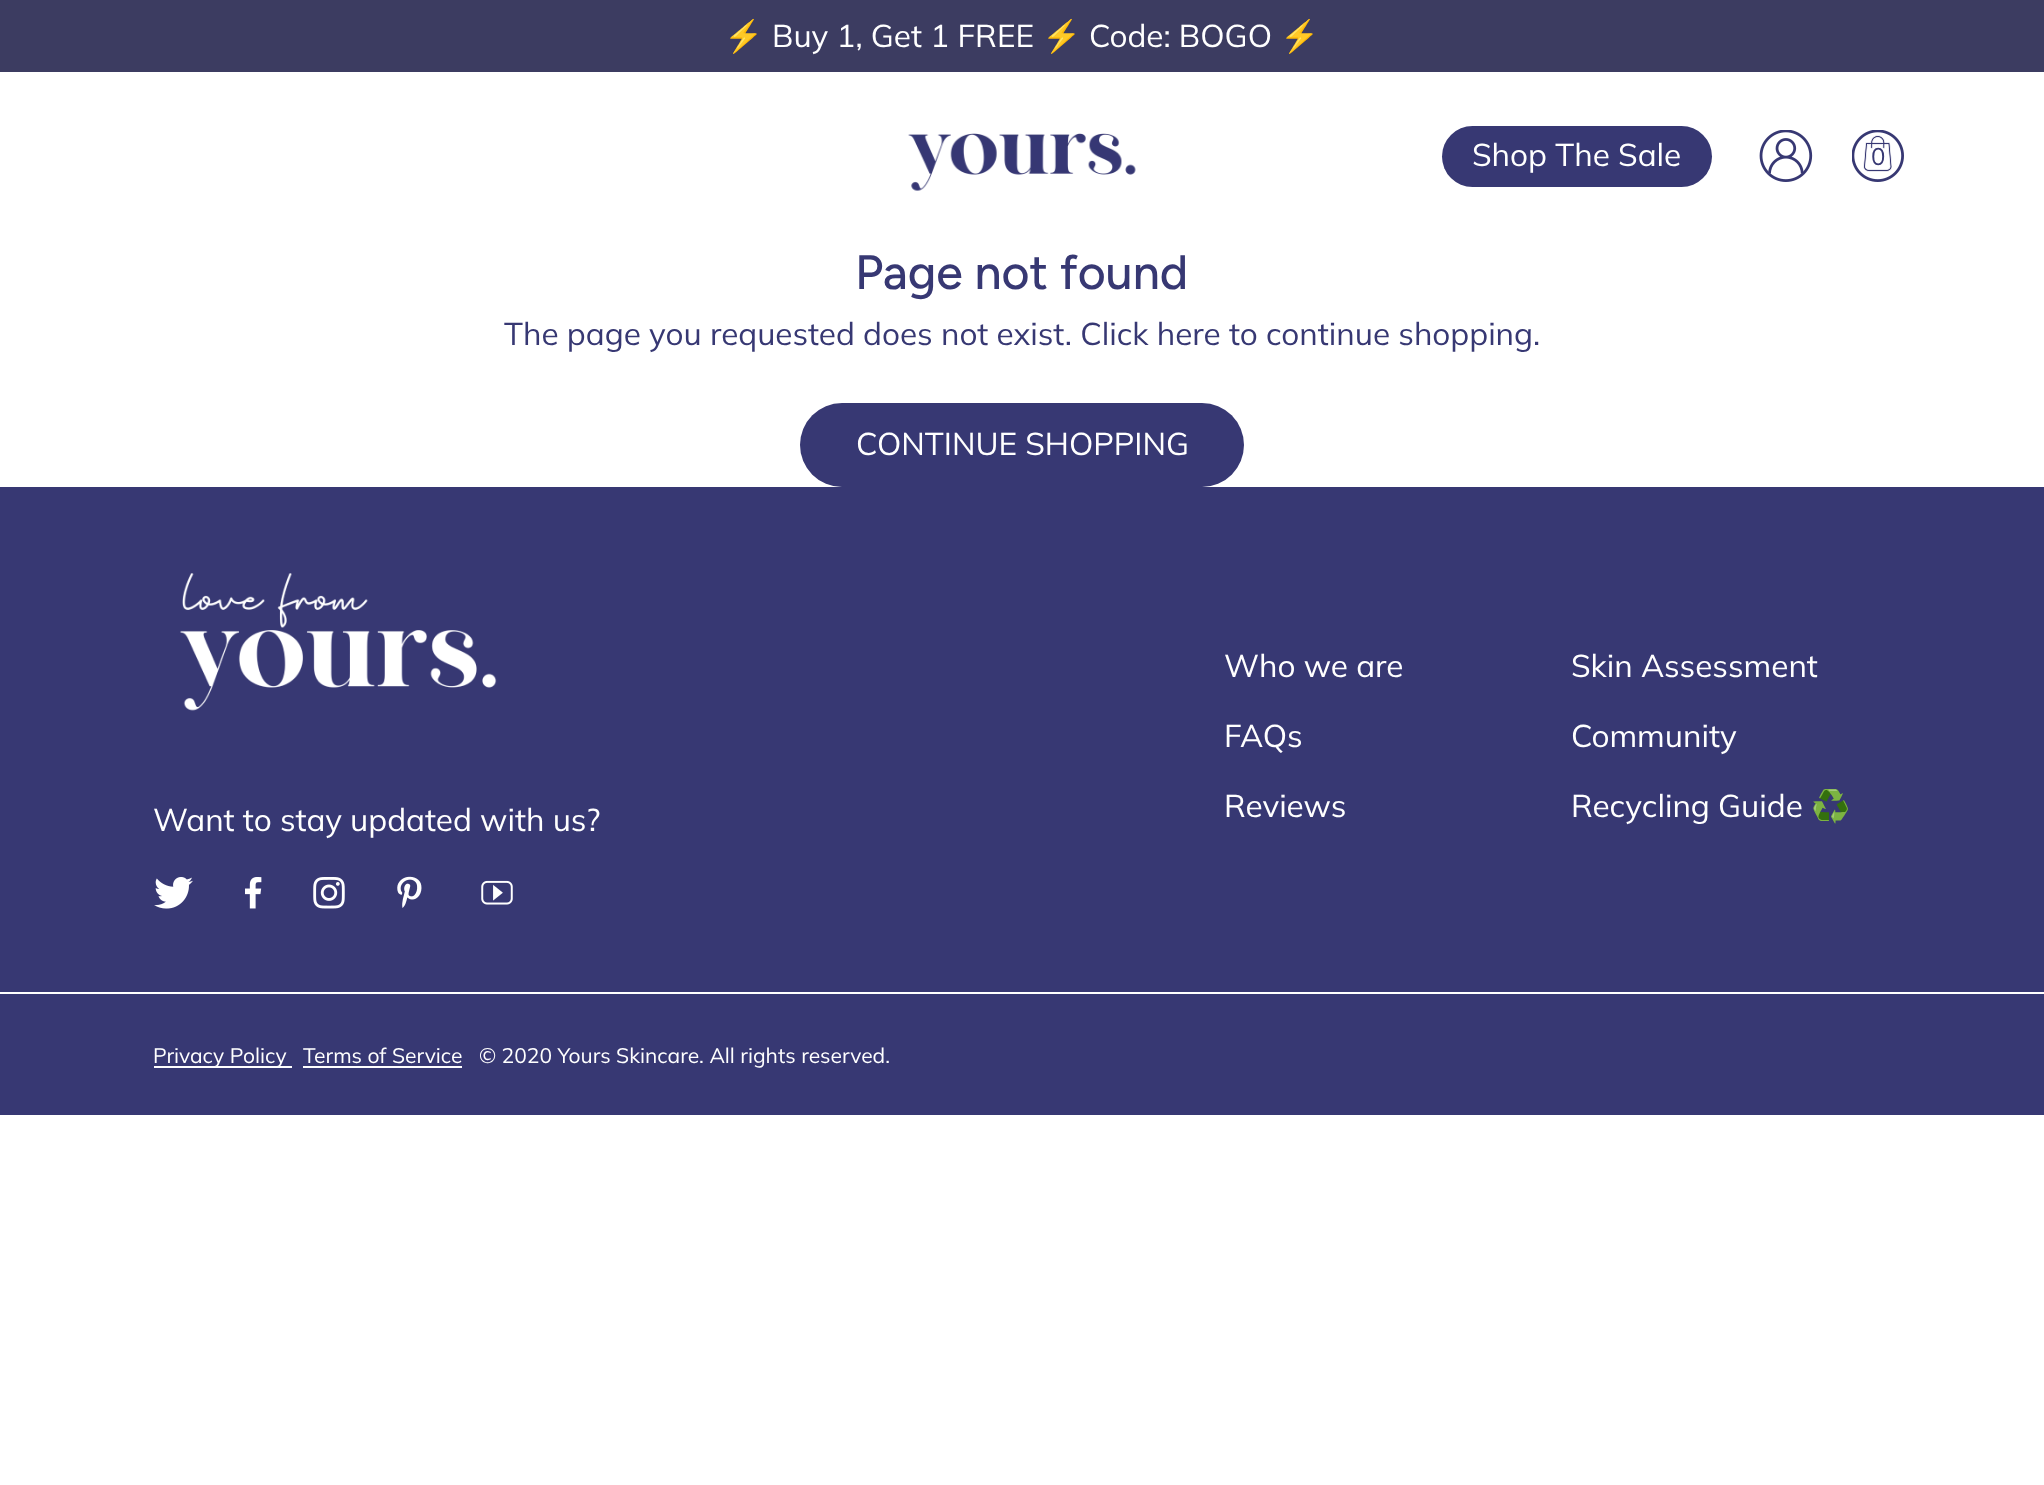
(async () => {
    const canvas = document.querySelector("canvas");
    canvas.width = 2044;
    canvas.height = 1485;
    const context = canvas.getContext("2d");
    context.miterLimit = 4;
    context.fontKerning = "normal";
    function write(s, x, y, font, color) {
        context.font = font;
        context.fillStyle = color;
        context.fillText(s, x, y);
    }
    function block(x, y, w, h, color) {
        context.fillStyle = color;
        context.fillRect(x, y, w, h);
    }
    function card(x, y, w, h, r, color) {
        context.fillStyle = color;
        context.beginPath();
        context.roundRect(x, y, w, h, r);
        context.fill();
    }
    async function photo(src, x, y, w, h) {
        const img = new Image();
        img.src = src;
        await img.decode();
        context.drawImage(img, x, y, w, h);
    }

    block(0, 0, 2044, 1485, "rgb(255, 255, 255)");
    block(0, 0, 2044, 72, "rgb(60, 60, 97)");
    write("⚡️", 724, 47, "31.5px Noto Color Emoji", "rgb(255, 255, 255)");
    write("Buy 1, Get 1 FREE", 772, 47, "31.5px Muli", "rgb(255, 255, 255)");
    write("⚡️", 1042, 47, "31.5px Noto Color Emoji", "rgb(255, 255, 255)");
    write("Code: BOGO", 1089, 47, "31.5px Muli", "rgb(255, 255, 255)");
    write("⚡️", 1280, 47, "31.5px Noto Color Emoji", "rgb(255, 255, 255)");
    await photo("media/1.png", 908, 133, 228, 58);
    card(1442, 126, 270, 61, 30.5, "rgb(55, 56, 115)");
    write("Shop The Sale", 1472, 166, "31.5px Muli", "rgb(255, 255, 255)");
    await photo("media/2.png", 1759, 130, 54, 52);
    await photo("media/3.png", 1852, 130, 52, 52);
    write("0", 1871, 165, "24px Muli", "rgb(55, 56, 115)");
    write("Page not found", 855, 289, "500 48.25px Figtree", "rgb(55, 56, 115)");
    write("The page you requested does not exist. Click here to continue shopping.", 504, 345, "31.5px Muli", "rgb(55, 56, 115)");
    card(800, 403, 444, 84, 42, "rgb(55, 56, 115)");
    write("CONTINUE SHOPPING", 856, 455, "31.5px Muli", "rgb(255, 255, 255)");
    block(0, 487, 2044, 628, "rgb(55, 56, 115)");
    await photo("media/4.png", 180, 573, 317, 138);
    write("Want to stay updated with us?", 153, 831, "31.5px Muli", "rgb(255, 255, 255)");
    await photo("media/5.png", 154, 877, 39, 32);
    await photo("media/6.png", 245, 877, 17, 32);
    await photo("media/7.png", 313, 877, 32, 32);
    await photo("media/8.png", 397, 876, 25, 32);
    await photo("media/9.png", 481, 880, 32, 25);
    write("Who we are", 1224, 677, "31.5px Muli", "rgb(255, 255, 255)");
    write("FAQs", 1224, 747, "31.5px Muli", "rgb(255, 255, 255)");
    write("Reviews", 1224, 817, "31.5px Muli", "rgb(255, 255, 255)");
    write("Skin Assessment", 1571, 677, "31.5px Muli", "rgb(255, 255, 255)");
    write("Community", 1571, 747, "31.5px Muli", "rgb(255, 255, 255)");
    write("Recycling Guide", 1571, 817, "31.5px Muli", "rgb(255, 255, 255)");
    write("♻️", 1811, 817, "31.5px Noto Color Emoji", "rgb(255, 255, 255)");
    block(0, 992, 2044, 2, "rgb(255, 255, 255)");
    block(154, 1066, 138, 2, "rgb(255, 255, 255)");
    write("Privacy Policy", 153, 1063, "21px Muli", "rgb(255, 255, 255)");
    write("Terms of Service", 303, 1063, "21px Muli", "rgb(255, 255, 255)");
    block(303, 1066, 159, 2, "rgb(255, 255, 255)");
    write("© 2020 Yours Skincare. All rights reserved.", 479, 1063, "21px Muli", "rgb(255, 255, 255)");
})();
